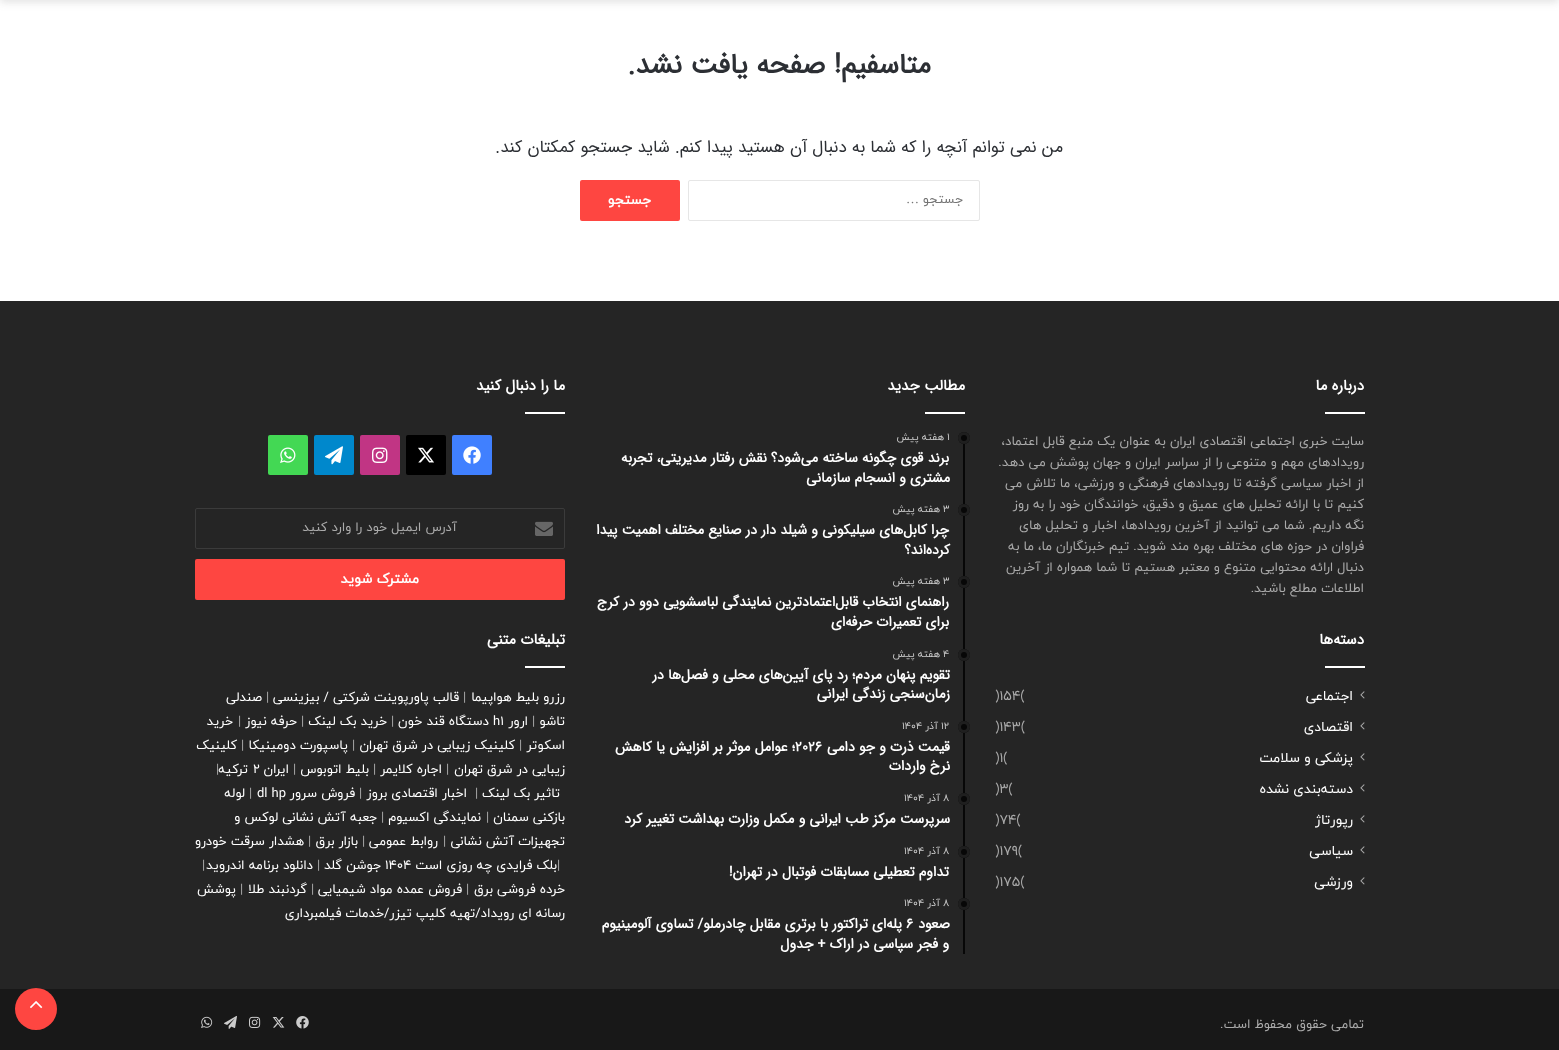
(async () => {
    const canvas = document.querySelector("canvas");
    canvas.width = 1559;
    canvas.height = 1050;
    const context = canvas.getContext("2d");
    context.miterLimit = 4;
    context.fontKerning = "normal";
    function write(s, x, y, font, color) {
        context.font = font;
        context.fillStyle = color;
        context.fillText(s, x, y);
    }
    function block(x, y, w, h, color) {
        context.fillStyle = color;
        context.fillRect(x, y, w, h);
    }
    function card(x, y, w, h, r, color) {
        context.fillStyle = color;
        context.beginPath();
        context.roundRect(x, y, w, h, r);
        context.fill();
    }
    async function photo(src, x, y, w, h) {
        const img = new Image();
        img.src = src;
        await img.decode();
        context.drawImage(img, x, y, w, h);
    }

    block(0, 0, 1559, 1050, "rgb(255, 255, 255)");
    context.fillStyle = "rgba(99, 99, 99, 0.2)";
    context.filter = "blur(4px)";
    context.beginPath();
    context.rect(0, -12, 1559, 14);
    context.fill();
    context.filter = "none";
    context.direction = "rtl";
    write("متاسفیم! صفحه یافت نشد.", 931, 73, "bold 28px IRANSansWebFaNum", "rgb(44, 47, 52)");
    write("من نمی توانم آنچه را که شما به دنبال آن هستید پیدا کنم. شاید جستجو کمکتان کند.", 1063, 152, "17px IRANSansWebFaNum", "rgb(44, 47, 52)");
    context.beginPath();
    context.roundRect(688.5, 180.5, 291, 40, 1.5);
    context.strokeStyle = "rgb(230, 230, 230)";
    context.stroke();
    write("جستجو", 963, 203, "13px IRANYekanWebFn", "rgb(117, 117, 117)");
    write("…", 919, 203, "13px Liberation Serif", "rgb(117, 117, 117)");
    card(580, 180, 100, 41, 2, "rgb(254, 70, 65)");
    write("جستجو", 651, 204, "bold 14px IRANYekanWebFn", "rgb(255, 255, 255)");
    block(0, 301, 1559, 688, "rgb(37, 37, 37)");
    write("درباره ما", 1364, 390, "bold 15px IRANSansWebFaNum", "rgb(255, 255, 255)");
    block(1325, 412, 40, 2, "rgb(255, 255, 255)");
    write("سایت خبری اجتماعی اقتصادی ایران به عنوان یک منبع قابل اعتماد،", 1364, 445, "13px IRANYekanWebFn", "rgb(170, 170, 170)");
    write("رویدادهای مهم و متنوعی را از سراسر ایران و جهان پوشش می دهد.", 1364, 466, "13px IRANYekanWebFn", "rgb(170, 170, 170)");
    write("از اخبار سیاسی گرفته تا رویدادهای فرهنگی و ورزشی، ما تلاش می", 1364, 487, "13px IRANYekanWebFn", "rgb(170, 170, 170)");
    write("کنیم تا با ارائه تحلیل های عمیق و دقیق، خوانندگان خود را به روز", 1364, 508, "13px IRANYekanWebFn", "rgb(170, 170, 170)");
    write("نگه داریم. شما می توانید از آخرین رویدادها، اخبار و تحلیل های", 1364, 529, "13px IRANYekanWebFn", "rgb(170, 170, 170)");
    write("فراوان در حوزه های مختلف بهره مند شوید. تیم خبرنگاران ما، ما به", 1364, 550, "13px IRANYekanWebFn", "rgb(170, 170, 170)");
    write("دنبال ارائه محتوایی متنوع و معتبر هستیم تا شما همواره از آخرین", 1364, 571, "13px IRANYekanWebFn", "rgb(170, 170, 170)");
    write("اطلاعات مطلع باشید.", 1364, 592, "13px IRANYekanWebFn", "rgb(170, 170, 170)");
    write("دسته‌ها", 1364, 644, "bold 15px IRANSansWebFaNum", "rgb(255, 255, 255)");
    block(1325, 666, 40, 2, "rgb(255, 255, 255)");
    await photo("media/1.png", 1360, 691, 5, 8);
    write("اجتماعی", 1353, 700, "13.75px IRANYekanWebFn", "rgb(255, 255, 255)");
    context.direction = "ltr";
    write(")154(", 995, 700, "13.75px IRANYekanWebFn", "rgb(170, 170, 170)");
    await photo("media/1.png", 1360, 722, 5, 8);
    context.direction = "rtl";
    write("اقتصادی", 1353, 731, "13.75px IRANYekanWebFn", "rgb(255, 255, 255)");
    context.direction = "ltr";
    write(")143(", 995, 731, "13.75px IRANYekanWebFn", "rgb(170, 170, 170)");
    await photo("media/1.png", 1360, 753, 5, 8);
    context.direction = "rtl";
    write("پزشکی و سلامت", 1353, 762, "13.75px IRANYekanWebFn", "rgb(255, 255, 255)");
    context.direction = "ltr";
    write(")1(", 995, 762, "13.75px IRANYekanWebFn", "rgb(170, 170, 170)");
    await photo("media/1.png", 1360, 784, 5, 8);
    context.direction = "rtl";
    write("دسته‌بندی نشده", 1353, 793, "13.75px IRANYekanWebFn", "rgb(255, 255, 255)");
    context.direction = "ltr";
    write(")3(", 995, 793, "13.75px IRANYekanWebFn", "rgb(170, 170, 170)");
    await photo("media/1.png", 1360, 815, 5, 8);
    context.direction = "rtl";
    write("رپورتاژ", 1353, 824, "13.75px IRANYekanWebFn", "rgb(255, 255, 255)");
    context.direction = "ltr";
    write(")74(", 995, 824, "13.75px IRANYekanWebFn", "rgb(170, 170, 170)");
    await photo("media/1.png", 1360, 846, 5, 8);
    context.direction = "rtl";
    write("سیاسی", 1353, 855, "13.75px IRANYekanWebFn", "rgb(255, 255, 255)");
    context.direction = "ltr";
    write(")179(", 995, 855, "13.75px IRANYekanWebFn", "rgb(170, 170, 170)");
    await photo("media/1.png", 1360, 877, 5, 8);
    context.direction = "rtl";
    write("ورزشی", 1353, 886, "13.75px IRANYekanWebFn", "rgb(255, 255, 255)");
    context.direction = "ltr";
    write(")175(", 995, 886, "13.75px IRANYekanWebFn", "rgb(170, 170, 170)");
    context.direction = "rtl";
    write("مطالب جدید", 965, 390, "bold 15px IRANSansWebFaNum", "rgb(255, 255, 255)");
    block(925, 412, 40, 2, "rgb(255, 255, 255)");
    block(963, 432, 2, 522, "rgb(7, 7, 7)");
    context.beginPath();
    context.arc(964, 438, 6, 0, Math.PI * 2);
    context.fill();
    context.beginPath();
    context.arc(964, 438, 4.5, 0, Math.PI * 2);
    context.strokeStyle = "rgba(37, 37, 37, 0.8)";
    context.lineWidth = 3;
    context.stroke();
    context.direction = "ltr";
    write("1", 947, 440, "10px IRANYekanWebFn", "rgb(204, 204, 204)");
    context.direction = "rtl";
    write("هفته پیش", 944, 440, "10px IRANYekanWebFn", "rgb(204, 204, 204)");
    write("برند قوی چگونه ساخته می‌شود؟ نقش رفتار مدیریتی، تجربه", 949, 462, "bold 14px IRANSansWebFaNum", "rgb(255, 255, 255)");
    write("مشتری و انسجام سازمانی", 950, 482, "bold 14px IRANSansWebFaNum", "rgb(255, 255, 255)");
    context.fillStyle = "rgb(7, 7, 7)";
    context.beginPath();
    context.arc(964, 510, 6, 0, Math.PI * 2);
    context.fill();
    context.beginPath();
    context.arc(964, 510, 4.5, 0, Math.PI * 2);
    context.stroke();
    context.direction = "ltr";
    write("3", 943, 512, "10px IRANYekanWebFn", "rgb(204, 204, 204)");
    context.direction = "rtl";
    write("هفته پیش", 940, 512, "10px IRANYekanWebFn", "rgb(204, 204, 204)");
    write("چرا کابل‌های سیلیکونی و شیلد دار در صنایع مختلف اهمیت پیدا", 949, 534, "bold 14px IRANSansWebFaNum", "rgb(255, 255, 255)");
    write("کرده‌اند؟", 950, 554, "bold 14px IRANSansWebFaNum", "rgb(255, 255, 255)");
    context.fillStyle = "rgb(7, 7, 7)";
    context.beginPath();
    context.arc(964, 582, 6, 0, Math.PI * 2);
    context.fill();
    context.beginPath();
    context.arc(964, 582, 4.5, 0, Math.PI * 2);
    context.stroke();
    context.direction = "ltr";
    write("3", 943, 584, "10px IRANYekanWebFn", "rgb(204, 204, 204)");
    context.direction = "rtl";
    write("هفته پیش", 940, 584, "10px IRANYekanWebFn", "rgb(204, 204, 204)");
    write("راهنمای انتخاب قابل‌اعتمادترین نمایندگی لباسشویی دوو در کرج", 949, 606, "bold 14px IRANSansWebFaNum", "rgb(255, 255, 255)");
    write("برای تعمیرات حرفه‌ای", 949, 626, "bold 14px IRANSansWebFaNum", "rgb(255, 255, 255)");
    context.fillStyle = "rgb(7, 7, 7)";
    context.beginPath();
    context.arc(964, 655, 6, 0, Math.PI * 2);
    context.fill();
    context.beginPath();
    context.arc(964, 655, 4.5, 0, Math.PI * 2);
    context.stroke();
    context.direction = "ltr";
    write("4", 943, 657, "10px IRANYekanWebFn", "rgb(204, 204, 204)");
    context.direction = "rtl";
    write("هفته پیش", 940, 657, "10px IRANYekanWebFn", "rgb(204, 204, 204)");
    write("تقویم پنهان مردم؛ رد پای آیین‌های محلی و فصل‌ها در", 950, 679, "bold 14px IRANSansWebFaNum", "rgb(255, 255, 255)");
    write("زمان‌سنجی زندگی ایرانی", 950, 698, "bold 14px IRANSansWebFaNum", "rgb(255, 255, 255)");
    context.fillStyle = "rgb(7, 7, 7)";
    context.beginPath();
    context.arc(964, 727, 6, 0, Math.PI * 2);
    context.fill();
    context.beginPath();
    context.arc(964, 727, 4.5, 0, Math.PI * 2);
    context.stroke();
    context.direction = "ltr";
    write("12", 941, 729, "10px IRANYekanWebFn", "rgb(204, 204, 204)");
    context.direction = "rtl";
    write("آذر", 938, 729, "10px IRANYekanWebFn", "rgb(204, 204, 204)");
    context.direction = "ltr";
    write("1404", 902, 729, "10px IRANYekanWebFn", "rgb(204, 204, 204)");
    context.direction = "rtl";
    write("قیمت ذرت و جو دامی", 950, 751, "bold 14px IRANSansWebFaNum", "rgb(255, 255, 255)");
    context.direction = "ltr";
    write("2026", 795, 751, "bold 14px IRANSansWebFaNum", "rgb(255, 255, 255)");
    context.direction = "rtl";
    write("؛ عوامل موثر بر افزایش یا کاهش", 795, 751, "bold 14px IRANSansWebFaNum", "rgb(255, 255, 255)");
    write("نرخ واردات", 950, 770, "bold 14px IRANSansWebFaNum", "rgb(255, 255, 255)");
    context.fillStyle = "rgb(7, 7, 7)";
    context.beginPath();
    context.arc(964, 799, 6, 0, Math.PI * 2);
    context.fill();
    context.beginPath();
    context.arc(964, 799, 4.5, 0, Math.PI * 2);
    context.stroke();
    context.direction = "ltr";
    write("8", 943, 801, "10px IRANYekanWebFn", "rgb(204, 204, 204)");
    context.direction = "rtl";
    write("آذر", 940, 801, "10px IRANYekanWebFn", "rgb(204, 204, 204)");
    context.direction = "ltr";
    write("1404", 904, 801, "10px IRANYekanWebFn", "rgb(204, 204, 204)");
    context.direction = "rtl";
    write("سرپرست مرکز طب ایرانی و مکمل وزارت بهداشت تغییر کرد", 950, 823, "bold 14px IRANSansWebFaNum", "rgb(255, 255, 255)");
    context.fillStyle = "rgb(7, 7, 7)";
    context.beginPath();
    context.arc(964, 852, 6, 0, Math.PI * 2);
    context.fill();
    context.beginPath();
    context.arc(964, 852, 4.5, 0, Math.PI * 2);
    context.stroke();
    context.direction = "ltr";
    write("8", 943, 854, "10px IRANYekanWebFn", "rgb(204, 204, 204)");
    context.direction = "rtl";
    write("آذر", 940, 854, "10px IRANYekanWebFn", "rgb(204, 204, 204)");
    context.direction = "ltr";
    write("1404", 904, 854, "10px IRANYekanWebFn", "rgb(204, 204, 204)");
    context.direction = "rtl";
    write("تداوم تعطیلی مسابقات فوتبال در تهران!", 949, 876, "bold 14px IRANSansWebFaNum", "rgb(255, 255, 255)");
    context.fillStyle = "rgb(7, 7, 7)";
    context.beginPath();
    context.arc(964, 904, 6, 0, Math.PI * 2);
    context.fill();
    context.beginPath();
    context.arc(964, 904, 4.5, 0, Math.PI * 2);
    context.stroke();
    context.direction = "ltr";
    write("8", 943, 906, "10px IRANYekanWebFn", "rgb(204, 204, 204)");
    context.direction = "rtl";
    write("آذر", 940, 906, "10px IRANYekanWebFn", "rgb(204, 204, 204)");
    context.direction = "ltr";
    write("1404", 904, 906, "10px IRANYekanWebFn", "rgb(204, 204, 204)");
    context.direction = "rtl";
    write("صعود", 950, 928, "bold 14px IRANSansWebFaNum", "rgb(255, 255, 255)");
    context.direction = "ltr";
    write("6", 906, 928, "bold 14px IRANSansWebFaNum", "rgb(255, 255, 255)");
    context.direction = "rtl";
    write("پله‌ای تراکتور با برتری مقابل چادرملو/ تساوی آلومینیوم", 902, 928, "bold 14px IRANSansWebFaNum", "rgb(255, 255, 255)");
    write("و فجر سپاسی در اراک + جدول", 949, 948, "bold 14px IRANSansWebFaNum", "rgb(255, 255, 255)");
    write("ما را دنبال کنید", 565, 390, "bold 15px IRANSansWebFaNum", "rgb(255, 255, 255)");
    block(525, 412, 40, 2, "rgb(255, 255, 255)");
    card(452, 435, 40, 40, 2, "rgb(64, 128, 255)");
    await photo("media/2.png", 463, 446, 18, 18);
    card(406, 435, 40, 40, 2, "rgb(0, 0, 0)");
    await photo("media/3.png", 418, 447, 16, 16);
    card(360, 435, 40, 40, 2, "rgb(193, 53, 132)");
    await photo("media/4.png", 372, 447, 16, 16);
    card(314, 435, 40, 40, 2, "rgb(0, 136, 204)");
    await photo("media/5.png", 325, 446, 18, 19);
    card(268, 435, 40, 40, 2, "rgb(67, 216, 84)");
    await photo("media/6.png", 280, 447, 16, 16);
    context.beginPath();
    context.roundRect(195.5, 508.5, 369, 40, 1.5);
    context.strokeStyle = "rgb(59, 59, 59)";
    context.lineWidth = 1;
    context.stroke();
    await photo("media/7.png", 535, 521, 18, 15);
    write("آدرس ایمیل خود را وارد کنید", 457, 531, "13px IRANYekanWebFn", "rgb(170, 170, 170)");
    card(195, 559, 370, 41, 2, "rgb(254, 70, 65)");
    write("مشترک شوید", 419, 583, "bold 14px IRANYekanWebFn", "rgb(255, 255, 255)");
    write("تبلیغات متنی", 565, 644, "bold 15px IRANSansWebFaNum", "rgb(255, 255, 255)");
    block(525, 666, 40, 2, "rgb(255, 255, 255)");
    write("رزرو بلیط هواپیما", 565, 701, "13px IRANYekanWebFn", "rgb(255, 255, 255)");
    context.direction = "ltr";
    write("|", 463, 701, "13px IRANYekanWebFn", "rgb(170, 170, 170)");
    context.direction = "rtl";
    write("قالب پاورپوینت شرکتی / بیزینسی", 459, 701, "13px IRANYekanWebFn", "rgb(255, 255, 255)");
    context.direction = "ltr";
    write("|", 266, 701, "13px IRANYekanWebFn", "rgb(170, 170, 170)");
    context.direction = "rtl";
    write("صندلی", 262, 701, "13px IRANYekanWebFn", "rgb(255, 255, 255)");
    write("تاشو", 565, 725, "13px IRANYekanWebFn", "rgb(255, 255, 255)");
    context.direction = "ltr";
    write("|", 532, 725, "13px IRANYekanWebFn", "rgb(170, 170, 170)");
    context.direction = "rtl";
    write("ارور", 528, 725, "13px IRANYekanWebFn", "rgb(255, 255, 255)");
    context.direction = "ltr";
    write("h1", 493, 725, "13px IRANYekanWebFn", "rgb(255, 255, 255)");
    context.direction = "rtl";
    write("دستگاه قند خون", 489, 725, "13px IRANYekanWebFn", "rgb(255, 255, 255)");
    context.direction = "ltr";
    write("|", 391, 725, "13px IRANYekanWebFn", "rgb(170, 170, 170)");
    context.direction = "rtl";
    write("خرید بک لینک", 387, 725, "13px IRANYekanWebFn", "rgb(255, 255, 255)");
    context.direction = "ltr";
    write("|", 301, 725, "13px IRANYekanWebFn", "rgb(170, 170, 170)");
    context.direction = "rtl";
    write("حرفه نیوز", 297, 725, "13px IRANYekanWebFn", "rgb(255, 255, 255)");
    context.direction = "ltr";
    write("|", 238, 725, "13px IRANYekanWebFn", "rgb(170, 170, 170)");
    context.direction = "rtl";
    write("خرید", 233, 725, "13px IRANYekanWebFn", "rgb(255, 255, 255)");
    write("اسکوتر", 565, 749, "13px IRANYekanWebFn", "rgb(255, 255, 255)");
    context.direction = "ltr";
    write("|", 519, 749, "13px IRANYekanWebFn", "rgb(170, 170, 170)");
    context.direction = "rtl";
    write("کلینیک زیبایی در شرق تهران", 515, 749, "13px IRANYekanWebFn", "rgb(255, 255, 255)");
    context.direction = "ltr";
    write("|", 352, 749, "13px IRANYekanWebFn", "rgb(170, 170, 170)");
    context.direction = "rtl";
    write("پاسپورت دومینیکا", 348, 749, "13px IRANYekanWebFn", "rgb(255, 255, 255)");
    context.direction = "ltr";
    write("|", 241, 749, "13px IRANYekanWebFn", "rgb(170, 170, 170)");
    context.direction = "rtl";
    write("کلینیک", 237, 749, "13px IRANYekanWebFn", "rgb(255, 255, 255)");
    write("زیبایی در شرق تهران", 565, 773, "13px IRANYekanWebFn", "rgb(255, 255, 255)");
    context.direction = "ltr";
    write("|", 446, 773, "13px IRANYekanWebFn", "rgb(170, 170, 170)");
    context.direction = "rtl";
    write("اجاره کلایمر", 442, 773, "13px IRANYekanWebFn", "rgb(255, 255, 255)");
    context.direction = "ltr";
    write("|", 373, 773, "13px IRANYekanWebFn", "rgb(170, 170, 170)");
    context.direction = "rtl";
    write("بلیط اتوبوس", 369, 773, "13px IRANYekanWebFn", "rgb(255, 255, 255)");
    context.direction = "ltr";
    write("|", 293, 773, "13px IRANYekanWebFn", "rgb(170, 170, 170)");
    context.direction = "rtl";
    write("ایران", 289, 773, "13px IRANYekanWebFn", "rgb(255, 255, 255)");
    context.direction = "ltr";
    write("۲", 253, 773, "13px IRANYekanWebFn", "rgb(255, 255, 255)");
    context.direction = "rtl";
    write("ترکیه", 248, 773, "13px IRANYekanWebFn", "rgb(255, 255, 255)");
    context.direction = "ltr";
    write("|", 216, 773, "13px IRANYekanWebFn", "rgb(170, 170, 170)");
    context.direction = "rtl";
    write("تاثیر بک لینک", 560, 797, "13px IRANYekanWebFn", "rgb(255, 255, 255)");
    context.direction = "ltr";
    write("|", 475, 797, "13px IRANYekanWebFn", "rgb(170, 170, 170)");
    context.direction = "rtl";
    write("اخبار اقتصادی بروز", 467, 797, "13px IRANYekanWebFn", "rgb(255, 255, 255)");
    context.direction = "ltr";
    write("|", 359, 797, "13px IRANYekanWebFn", "rgb(170, 170, 170)");
    context.direction = "rtl";
    write("فروش سرور", 355, 797, "13px IRANYekanWebFn", "rgb(255, 255, 255)");
    context.direction = "ltr";
    write("dl hp", 257, 797, "13px IRANYekanWebFn", "rgb(255, 255, 255)");
    write("|", 249, 797, "13px IRANYekanWebFn", "rgb(170, 170, 170)");
    context.direction = "rtl";
    write("لوله", 245, 797, "13px IRANYekanWebFn", "rgb(255, 255, 255)");
    write("بازکنی سمنان", 565, 821, "13px IRANYekanWebFn", "rgb(255, 255, 255)");
    context.direction = "ltr";
    write("|", 486, 821, "13px IRANYekanWebFn", "rgb(170, 170, 170)");
    context.direction = "rtl";
    write("نمایندگی اکسیوم", 481, 821, "13px IRANYekanWebFn", "rgb(255, 255, 255)");
    context.direction = "ltr";
    write("|", 381, 821, "13px IRANYekanWebFn", "rgb(170, 170, 170)");
    context.direction = "rtl";
    write("جعبه آتش نشانی لوکس و", 377, 821, "13px IRANYekanWebFn", "rgb(255, 255, 255)");
    write("تجهیزات آتش نشانی", 565, 845, "13px IRANYekanWebFn", "rgb(255, 255, 255)");
    context.direction = "ltr";
    write("|", 443, 845, "13px IRANYekanWebFn", "rgb(170, 170, 170)");
    context.direction = "rtl";
    write("روابط عمومی", 438, 845, "13px IRANYekanWebFn", "rgb(255, 255, 255)");
    context.direction = "ltr";
    write("|", 362, 845, "13px IRANYekanWebFn", "rgb(170, 170, 170)");
    context.direction = "rtl";
    write("بازار برق", 358, 845, "13px IRANYekanWebFn", "rgb(255, 255, 255)");
    context.direction = "ltr";
    write("|", 308, 845, "13px IRANYekanWebFn", "rgb(170, 170, 170)");
    context.direction = "rtl";
    write("هشدار سرقت خودرو", 304, 845, "13px IRANYekanWebFn", "rgb(255, 255, 255)");
    context.direction = "ltr";
    write("|", 557, 869, "13px IRANYekanWebFn", "rgb(170, 170, 170)");
    context.direction = "rtl";
    write("بلک فرایدی چه روزی است", 557, 869, "13px IRANYekanWebFn", "rgb(255, 255, 255)");
    context.direction = "ltr";
    write("1404", 385, 869, "13px IRANYekanWebFn", "rgb(255, 255, 255)");
    context.direction = "rtl";
    write("جوشن گلد", 381, 869, "13px IRANYekanWebFn", "rgb(255, 255, 255)");
    context.direction = "ltr";
    write("|", 317, 869, "13px IRANYekanWebFn", "rgb(170, 170, 170)");
    context.direction = "rtl";
    write("دانلود برنامه اندروید", 313, 869, "13px IRANYekanWebFn", "rgb(255, 255, 255)");
    context.direction = "ltr";
    write("|", 202, 869, "13px IRANYekanWebFn", "rgb(170, 170, 170)");
    context.direction = "rtl";
    write("خرده فروشی برق", 565, 893, "13px IRANYekanWebFn", "rgb(255, 255, 255)");
    context.direction = "ltr";
    write("|", 466, 893, "13px IRANYekanWebFn", "rgb(170, 170, 170)");
    context.direction = "rtl";
    write("فروش عمده مواد شیمیایی", 462, 893, "13px IRANYekanWebFn", "rgb(255, 255, 255)");
    context.direction = "ltr";
    write("|", 311, 893, "13px IRANYekanWebFn", "rgb(170, 170, 170)");
    context.direction = "rtl";
    write("گردنبند طلا", 307, 893, "13px IRANYekanWebFn", "rgb(255, 255, 255)");
    context.direction = "ltr";
    write("|", 240, 893, "13px IRANYekanWebFn", "rgb(170, 170, 170)");
    context.direction = "rtl";
    write("پوشش", 236, 893, "13px IRANYekanWebFn", "rgb(255, 255, 255)");
    write("رسانه ای رویداد/تهیه کلیپ تیزر/خدمات فیلمبرداری", 565, 917, "13px IRANYekanWebFn", "rgb(255, 255, 255)");
    block(0, 989, 1559, 61, "rgb(24, 24, 24)");
    write("تمامی حقوق محفوظ است.", 1364, 1028, "13px IRANYekanWebFn", "rgb(170, 170, 170)");
    await photo("media/8.png", 296, 1016, 13, 13);
    await photo("media/9.png", 272, 1017, 13, 11);
    await photo("media/10.png", 249, 1016, 12, 12);
    await photo("media/11.png", 224, 1015, 13, 14);
    await photo("media/12.png", 201, 1016, 12, 12);
    context.fillStyle = "rgb(254, 70, 65)";
    context.beginPath();
    context.arc(36, 1009, 21, 0, Math.PI * 2);
    context.fill();
    await photo("media/13.png", 30, 1001, 13, 8);
})();
